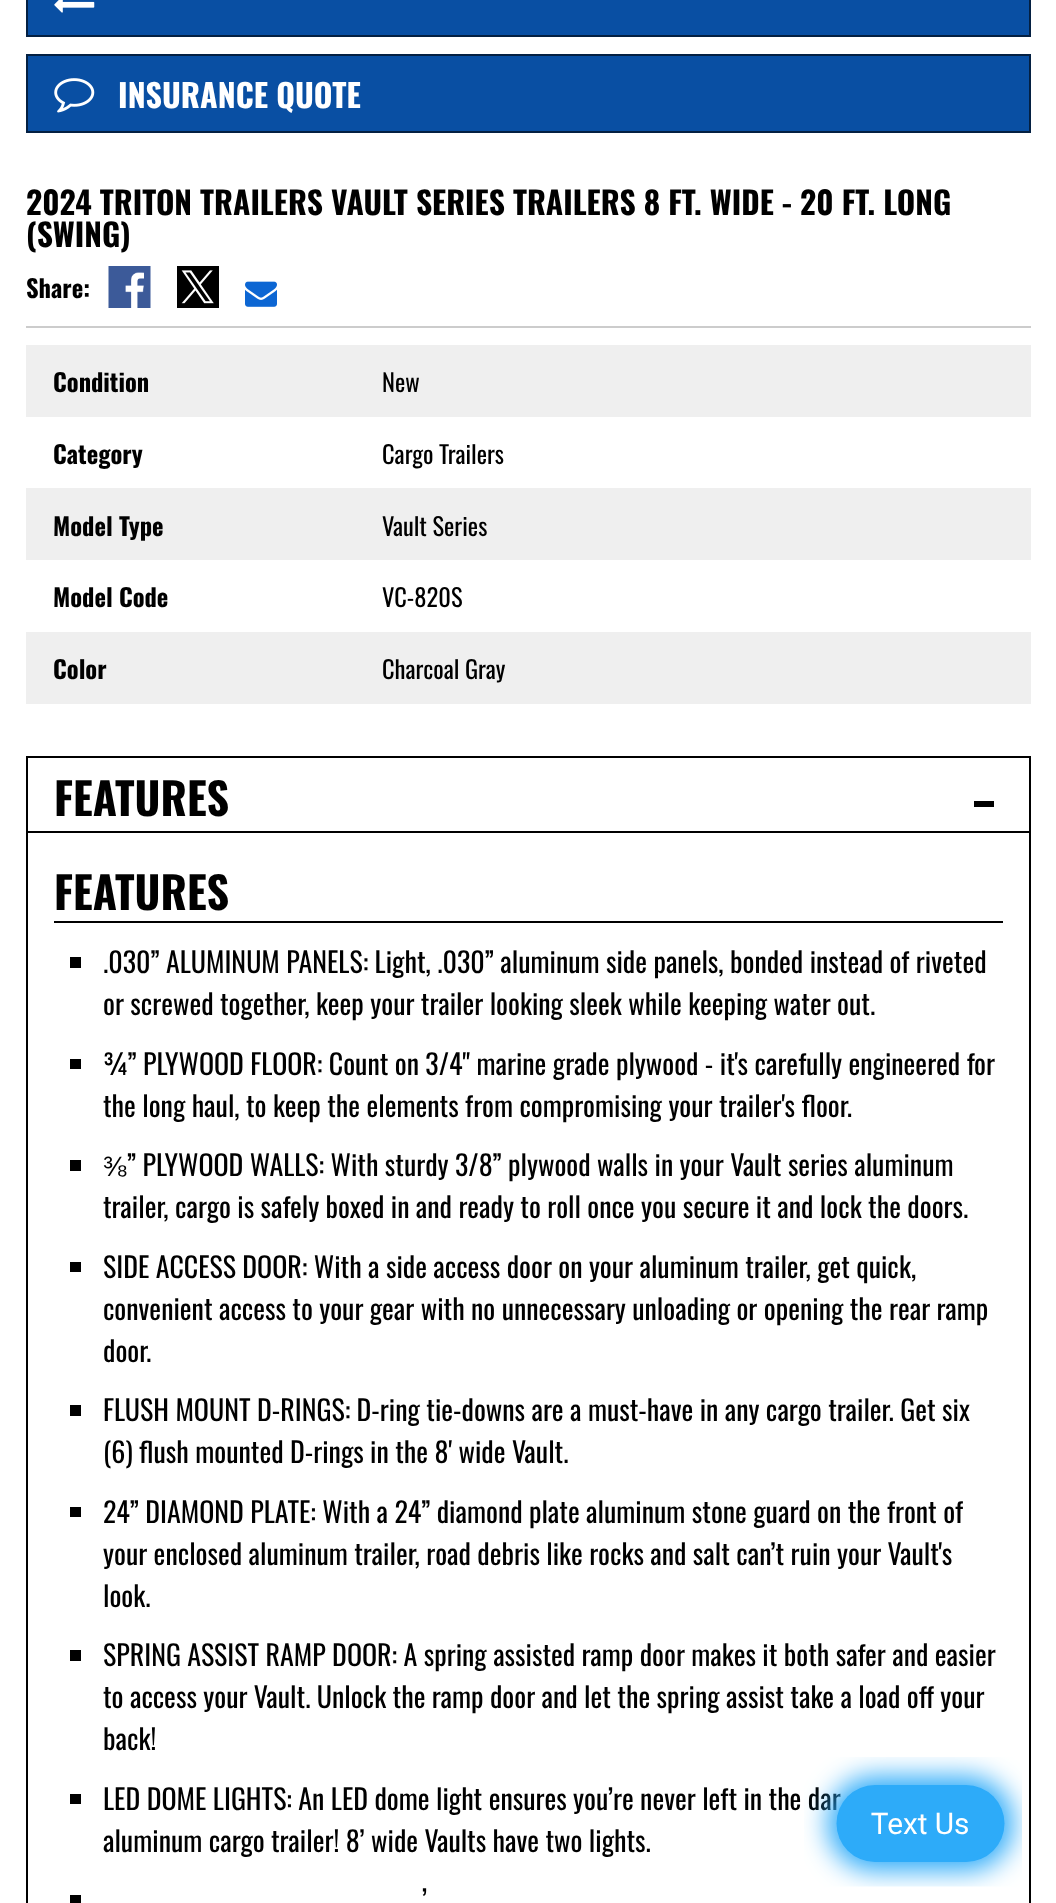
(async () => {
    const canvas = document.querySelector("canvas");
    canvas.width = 1056;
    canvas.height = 1903;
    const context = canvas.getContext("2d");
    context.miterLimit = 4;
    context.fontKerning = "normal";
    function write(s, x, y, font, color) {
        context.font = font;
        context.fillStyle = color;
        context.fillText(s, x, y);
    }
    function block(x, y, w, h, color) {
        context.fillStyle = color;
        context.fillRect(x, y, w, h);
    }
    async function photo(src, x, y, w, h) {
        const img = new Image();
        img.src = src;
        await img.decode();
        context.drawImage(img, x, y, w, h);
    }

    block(0, 0, 1056, 1903, "rgb(255, 255, 255)");
    context.fillStyle = "rgb(9, 79, 163)";
    context.beginPath();
    context.rect(27, -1, 1003, 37);
    context.fill();
    context.strokeStyle = "rgb(4, 32, 66)";
    context.lineWidth = 2;
    context.stroke();
    await photo("media/1.png", 54, 0, 41, 13);
    context.beginPath();
    context.rect(27, 55, 1003, 77);
    context.fill();
    context.stroke();
    await photo("media/2.png", 54, 78, 41, 35);
    write("INSURANCE QUOTE", 118, 108, "bold 32px Oswald", "rgb(255, 255, 255)");
    block(26, 326, 1005, 2, "rgb(204, 204, 204)");
    write("2024 TRITON TRAILERS VAULT SERIES TRAILERS 8 FT. WIDE - 20 FT. LONG", 26, 215, "bold 31.5px Oswald", "rgb(0, 0, 0)");
    write("(SWING)", 26, 247, "bold 31.5px Oswald", "rgb(0, 0, 0)");
    write("Share:", 26, 298, "bold 24.5px Oswald", "rgb(0, 0, 0)");
    await photo("media/3.png", 108, 266, 43, 42);
    await photo("media/4.png", 177, 266, 42, 42);
    await photo("media/5.png", 245, 281, 32, 26);
    block(26, 345, 1005, 72, "rgb(239, 239, 239)");
    write("Condition", 53, 392, "bold 24.5px Oswald", "rgb(0, 0, 0)");
    write("New", 382, 392, "24.5px Oswald", "rgb(0, 0, 0)");
    write("Category", 53, 464, "bold 24.5px Oswald", "rgb(0, 0, 0)");
    write("Cargo Trailers", 382, 464, "24.5px Oswald", "rgb(0, 0, 0)");
    block(26, 488, 1005, 72, "rgb(239, 239, 239)");
    write("Model Type", 53, 536, "bold 24.5px Oswald", "rgb(0, 0, 0)");
    write("Vault Series", 382, 536, "24.5px Oswald", "rgb(0, 0, 0)");
    write("Model Code", 53, 607, "bold 24.5px Oswald", "rgb(0, 0, 0)");
    write("VC-820S", 382, 607, "24.5px Oswald", "rgb(0, 0, 0)");
    block(26, 632, 1005, 72, "rgb(239, 239, 239)");
    write("Color", 53, 679, "bold 24.5px Oswald", "rgb(0, 0, 0)");
    write("Charcoal Gray", 382, 679, "24.5px Oswald", "rgb(0, 0, 0)");
    context.strokeStyle = "rgb(0, 0, 0)";
    context.strokeRect(27, 757, 1003, 75);
    write("FEATURES", 54, 816, "bold 44px Oswald", "rgb(0, 0, 0)");
    block(974, 801, 20, 6, "rgb(0, 0, 0)");
    context.beginPath();
    context.moveTo(26, 833);
    context.lineTo(1031, 833);
    context.lineTo(1031, 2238);
    context.bezierCurveTo(1031, 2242, 1028, 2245, 1024, 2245);
    context.lineTo(33, 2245);
    context.bezierCurveTo(29, 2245, 26, 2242, 26, 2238);
    context.closePath();
    context.moveTo(28, 833);
    context.lineTo(1029, 833);
    context.lineTo(1029, 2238);
    context.bezierCurveTo(1029, 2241, 1027, 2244, 1024, 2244);
    context.lineTo(33, 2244);
    context.bezierCurveTo(30, 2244, 28, 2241, 28, 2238);
    context.closePath();
    context.fill("evenodd");
    block(54, 921, 949, 2, "rgb(0, 0, 0)");
    write("FEATURES", 54, 910, "bold 44px Oswald", "rgb(0, 0, 0)");
    block(70, 957, 11, 11, "rgb(0, 0, 0)");
    write(".030” ALUMINUM PANELS: Light, .030” aluminum side panels, bonded instead of riveted", 103, 973, "28px Oswald", "rgb(0, 0, 0)");
    write("or screwed together, keep your trailer looking sleek while keeping water out.", 103, 1015, "28px Oswald", "rgb(0, 0, 0)");
    block(70, 1059, 11, 10, "rgb(0, 0, 0)");
    write("¾” PLYWOOD FLOOR: Count on 3/4\" marine grade plywood - it's carefully engineered for", 103, 1075, "28px Oswald", "rgb(0, 0, 0)");
    write("the long haul, to keep the elements from compromising your trailer's floor.", 103, 1117, "28px Oswald", "rgb(0, 0, 0)");
    block(70, 1160, 11, 11, "rgb(0, 0, 0)");
    write("⅜", 103, 1176, "28px Liberation Sans", "rgb(0, 0, 0)");
    write("” PLYWOOD WALLS: With sturdy 3/8” plywood walls in your Vault series aluminum", 127, 1176, "28px Oswald", "rgb(0, 0, 0)");
    write("trailer, cargo is safely boxed in and ready to roll once you secure it and lock the doors.", 103, 1218, "28px Oswald", "rgb(0, 0, 0)");
    block(70, 1262, 11, 10, "rgb(0, 0, 0)");
    write("SIDE ACCESS DOOR: With a side access door on your aluminum trailer, get quick,", 103, 1278, "28px Oswald", "rgb(0, 0, 0)");
    write("convenient access to your gear with no unnecessary unloading or opening the rear ramp", 103, 1320, "28px Oswald", "rgb(0, 0, 0)");
    write("door.", 103, 1362, "28px Oswald", "rgb(0, 0, 0)");
    block(70, 1405, 11, 11, "rgb(0, 0, 0)");
    write("FLUSH MOUNT D-RINGS: D-ring tie-downs are a must-have in any cargo trailer. Get six", 103, 1421, "28px Oswald", "rgb(0, 0, 0)");
    write("(6) flush mounted D-rings in the 8' wide Vault.", 103, 1463, "28px Oswald", "rgb(0, 0, 0)");
    block(70, 1507, 11, 10, "rgb(0, 0, 0)");
    write("24” DIAMOND PLATE: With a 24” diamond plate aluminum stone guard on the front of", 103, 1523, "28px Oswald", "rgb(0, 0, 0)");
    write("your enclosed aluminum trailer, road debris like rocks and salt can’t ruin your Vault's", 103, 1565, "28px Oswald", "rgb(0, 0, 0)");
    write("look.", 103, 1607, "28px Oswald", "rgb(0, 0, 0)");
    block(70, 1650, 11, 11, "rgb(0, 0, 0)");
    write("SPRING ASSIST RAMP DOOR: A spring assisted ramp door makes it both safer and easier", 103, 1666, "28px Oswald", "rgb(0, 0, 0)");
    write("to access your Vault. Unlock the ramp door and let the spring assist take a load off your", 103, 1708, "28px Oswald", "rgb(0, 0, 0)");
    write("back!", 103, 1750, "28px Oswald", "rgb(0, 0, 0)");
    block(70, 1794, 11, 10, "rgb(0, 0, 0)");
    write("LED DOME LIGHTS: An LED dome light ensures you’re never left in the dar", 103, 1810, "28px Oswald", "rgb(0, 0, 0)");
    write("aluminum cargo trailer! 8’ wide Vaults have two lights.", 103, 1852, "28px Oswald", "rgb(0, 0, 0)");
    write("’", 422, 1911, "28px Oswald", "rgb(0, 0, 0)");
    block(70, 1895, 11, 8, "rgb(0, 0, 0)");
    await photo("media/6.png", 804, 1757, 218, 130);
})();
